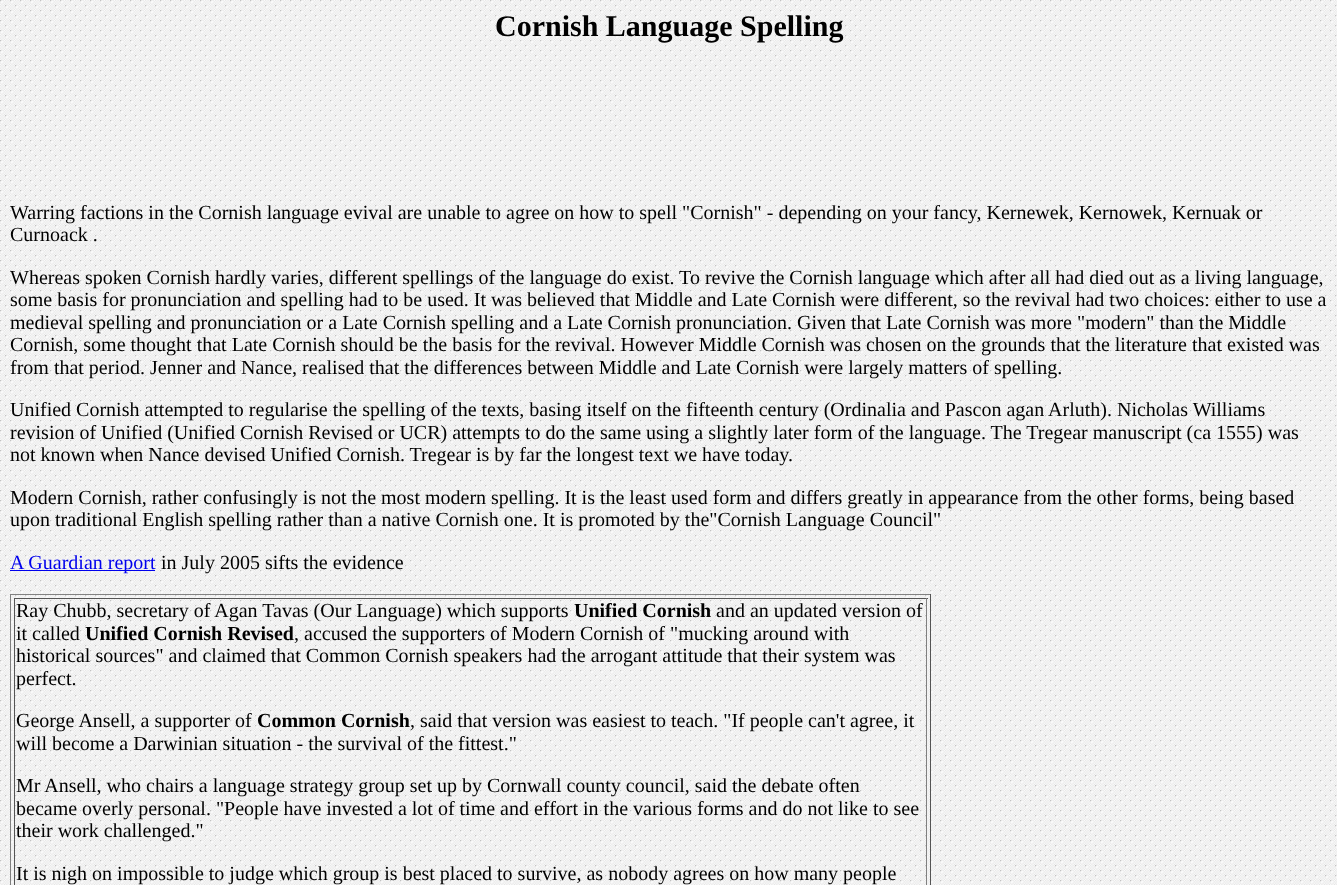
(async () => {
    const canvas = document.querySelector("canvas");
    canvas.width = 1337;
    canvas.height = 885;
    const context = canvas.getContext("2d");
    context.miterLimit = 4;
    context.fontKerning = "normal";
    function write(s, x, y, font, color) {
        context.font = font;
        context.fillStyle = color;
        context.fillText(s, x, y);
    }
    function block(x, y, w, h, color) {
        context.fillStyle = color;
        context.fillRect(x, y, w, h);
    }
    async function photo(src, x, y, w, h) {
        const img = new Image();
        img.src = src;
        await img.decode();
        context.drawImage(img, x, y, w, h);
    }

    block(0, 0, 1337, 885, "rgb(255, 255, 255)");
    await photo("media/1.png", 0, 0, 1337, 885);
    write("Cornish Language Spelling", 495, 36, "bold 30px Liberation Serif", "rgb(0, 0, 0)");
    write("Warring factions in the Cornish language evival are unable to agree on how to spell \"Cornish\" - depending on your fancy, Kernewek, Kernowek, Kernuak or", 10, 219, "20px Liberation Serif", "rgb(0, 0, 0)");
    write("Curnoack .", 10, 241, "20px Liberation Serif", "rgb(0, 0, 0)");
    write("Whereas spoken Cornish hardly varies, different spellings of the language do exist. To revive the Cornish language which after all had died out as a living language,", 10, 284, "20px Liberation Serif", "rgb(0, 0, 0)");
    write("some basis for pronunciation and spelling had to be used. It was believed that Middle and Late Cornish were different, so the revival had two choices: either to use a", 10, 306, "20px Liberation Serif", "rgb(0, 0, 0)");
    write("medieval spelling and pronunciation or a Late Cornish spelling and a Late Cornish pronunciation. Given that Late Cornish was more \"modern\" than the Middle", 10, 329, "20px Liberation Serif", "rgb(0, 0, 0)");
    write("Cornish, some thought that Late Cornish should be the basis for the revival. However Middle Cornish was chosen on the grounds that the literature that existed was", 10, 351, "20px Liberation Serif", "rgb(0, 0, 0)");
    write("from that period. Jenner and Nance, realised that the differences between Middle and Late Cornish were largely matters of spelling.", 10, 374, "20px Liberation Serif", "rgb(0, 0, 0)");
    write("Unified Cornish attempted to regularise the spelling of the texts, basing itself on the fifteenth century (Ordinalia and Pascon agan Arluth). Nicholas Williams", 10, 416, "20px Liberation Serif", "rgb(0, 0, 0)");
    write("revision of Unified (Unified Cornish Revised or UCR) attempts to do the same using a slightly later form of the language. The Tregear manuscript (ca 1555) was", 10, 439, "20px Liberation Serif", "rgb(0, 0, 0)");
    write("not known when Nance devised Unified Cornish. Tregear is by far the longest text we have today.", 10, 461, "20px Liberation Serif", "rgb(0, 0, 0)");
    write("Modern Cornish, rather confusingly is not the most modern spelling. It is the least used form and differs greatly in appearance from the other forms, being based", 10, 504, "20px Liberation Serif", "rgb(0, 0, 0)");
    write("upon traditional English spelling rather than a native Cornish one. It is promoted by the\"Cornish Language Council\"", 10, 526, "20px Liberation Serif", "rgb(0, 0, 0)");
    block(10, 570, 145, 1, "rgb(0, 0, 238)");
    write("A Guardian report", 10, 569, "20px Liberation Serif", "rgb(0, 0, 238)");
    write("in July 2005 sifts the evidence", 161, 569, "20px Liberation Serif", "rgb(0, 0, 0)");
    block(10, 594, 921, 1, "rgb(128, 128, 128)");
    block(930, 594, 1, 291, "rgb(85, 85, 85)");
    block(10, 594, 1, 291, "rgb(128, 128, 128)");
    block(14, 598, 914, 1, "rgb(85, 85, 85)");
    block(926, 598, 1, 287, "rgb(128, 128, 128)");
    block(14, 598, 1, 287, "rgb(85, 85, 85)");
    write("Ray Chubb, secretary of Agan Tavas (Our Language) which supports", 16, 617, "20px Liberation Serif", "rgb(0, 0, 0)");
    write("Unified Cornish", 574, 617, "bold 20px Liberation Serif", "rgb(0, 0, 0)");
    write("and an updated version of", 716, 617, "20px Liberation Serif", "rgb(0, 0, 0)");
    write("it called", 16, 640, "20px Liberation Serif", "rgb(0, 0, 0)");
    write("Unified Cornish Revised", 85, 640, "bold 20px Liberation Serif", "rgb(0, 0, 0)");
    write(", accused the supporters of Modern Cornish of \"mucking around with", 294, 640, "20px Liberation Serif", "rgb(0, 0, 0)");
    write("historical sources\" and claimed that Common Cornish speakers had the arrogant attitude that their system was", 16, 662, "20px Liberation Serif", "rgb(0, 0, 0)");
    write("perfect.", 16, 685, "20px Liberation Serif", "rgb(0, 0, 0)");
    write("George Ansell, a supporter of", 16, 727, "20px Liberation Serif", "rgb(0, 0, 0)");
    write("Common Cornish", 257, 727, "bold 20px Liberation Serif", "rgb(0, 0, 0)");
    write(", said that version was easiest to teach. \"If people can't agree, it", 410, 727, "20px Liberation Serif", "rgb(0, 0, 0)");
    write("will become a Darwinian situation - the survival of the fittest.\"", 16, 750, "20px Liberation Serif", "rgb(0, 0, 0)");
    write("Mr Ansell, who chairs a language strategy group set up by Cornwall county council, said the debate often", 16, 792, "20px Liberation Serif", "rgb(0, 0, 0)");
    write("became overly personal. \"People have invested a lot of time and effort in the various forms and do not like to see", 16, 815, "20px Liberation Serif", "rgb(0, 0, 0)");
    write("their work challenged.\"", 16, 837, "20px Liberation Serif", "rgb(0, 0, 0)");
    write("It is nigh on impossible to judge which group is best placed to survive, as nobody agrees on how many people", 16, 880, "20px Liberation Serif", "rgb(0, 0, 0)");
})();
